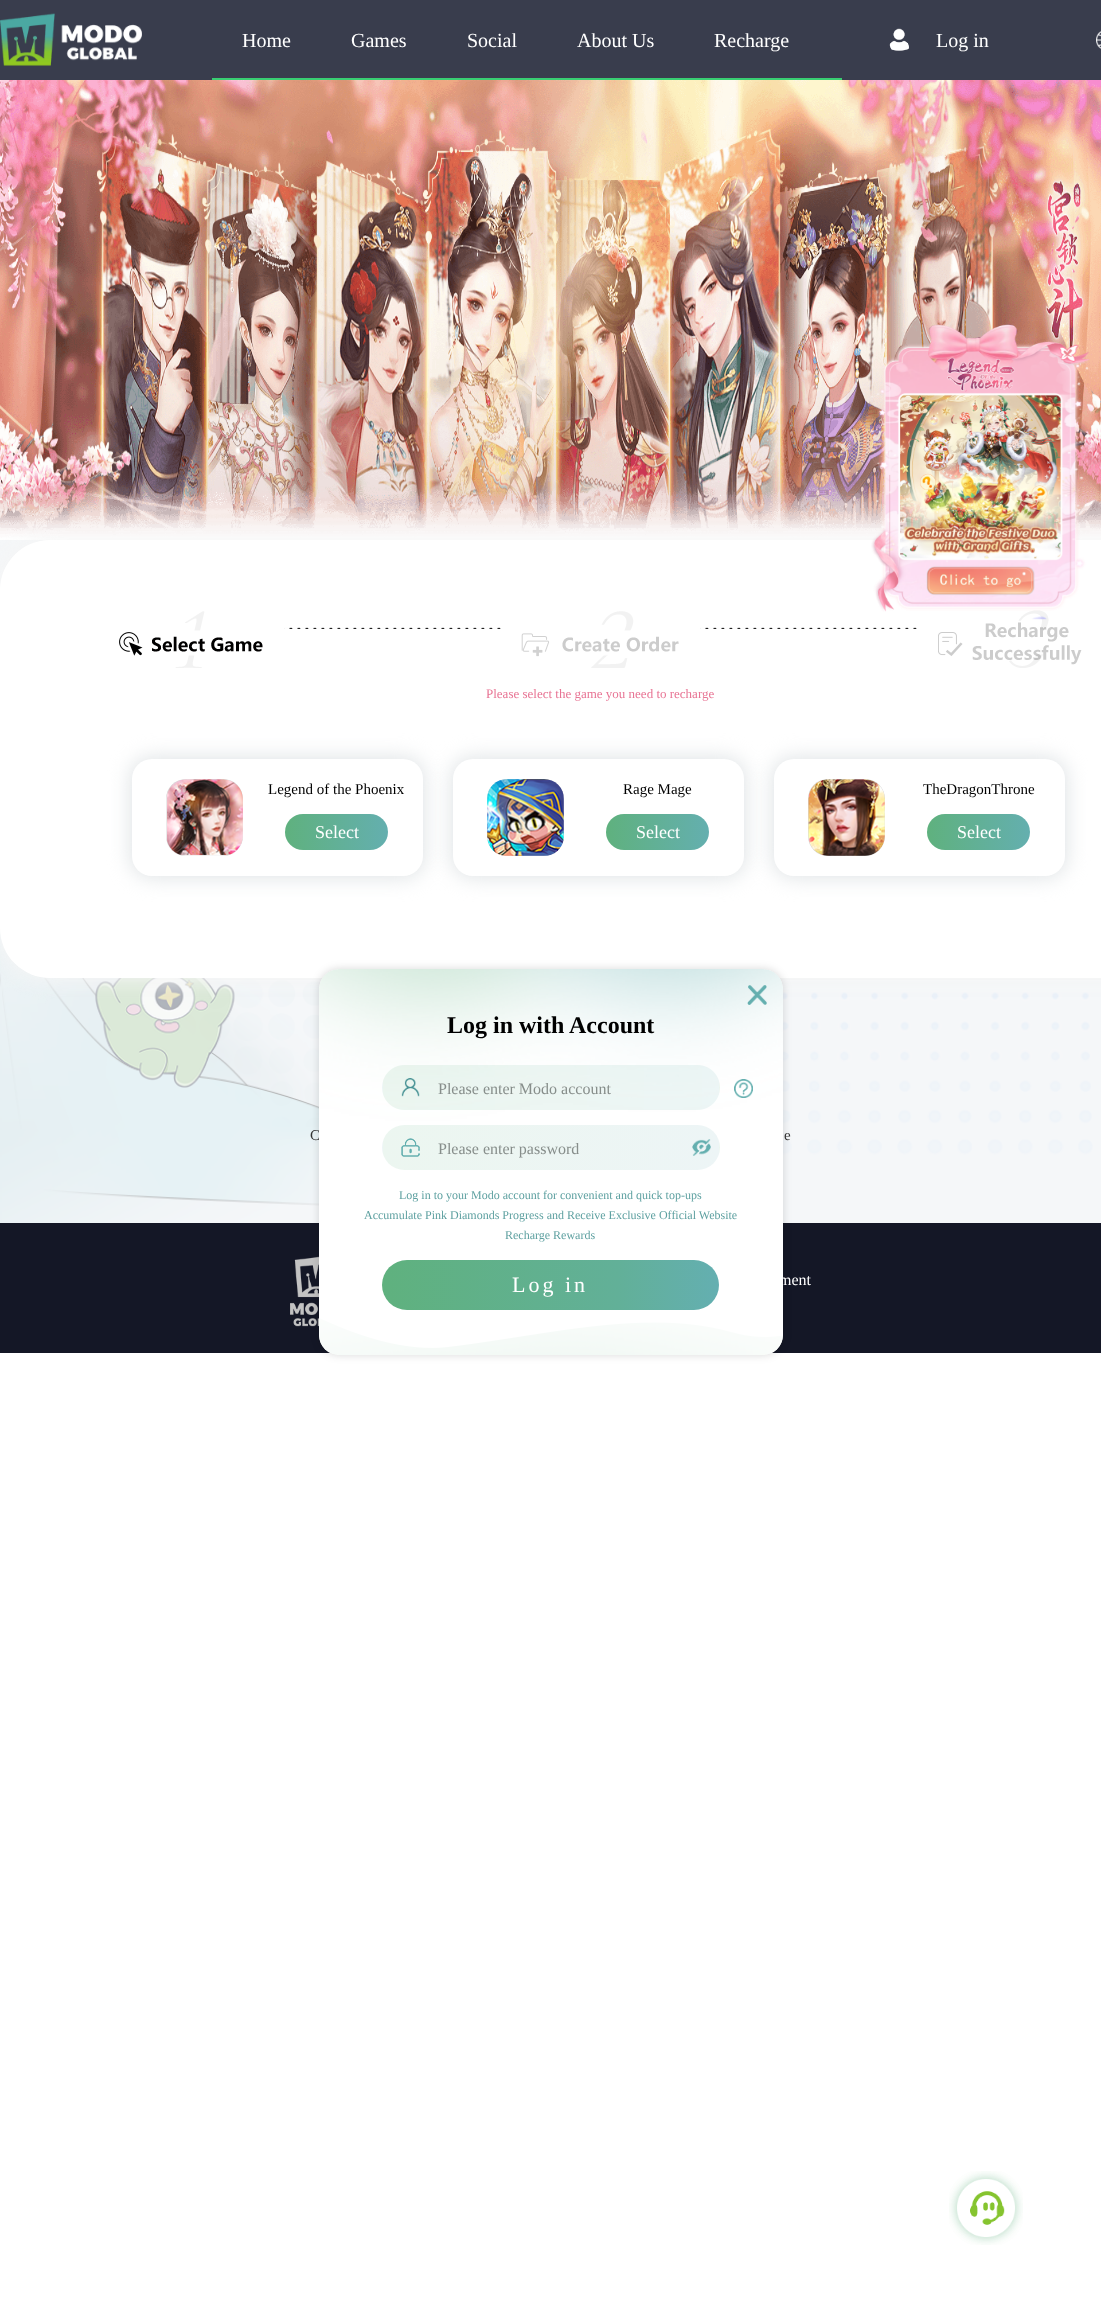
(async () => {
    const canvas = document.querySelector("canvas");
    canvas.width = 1101;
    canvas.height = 2323;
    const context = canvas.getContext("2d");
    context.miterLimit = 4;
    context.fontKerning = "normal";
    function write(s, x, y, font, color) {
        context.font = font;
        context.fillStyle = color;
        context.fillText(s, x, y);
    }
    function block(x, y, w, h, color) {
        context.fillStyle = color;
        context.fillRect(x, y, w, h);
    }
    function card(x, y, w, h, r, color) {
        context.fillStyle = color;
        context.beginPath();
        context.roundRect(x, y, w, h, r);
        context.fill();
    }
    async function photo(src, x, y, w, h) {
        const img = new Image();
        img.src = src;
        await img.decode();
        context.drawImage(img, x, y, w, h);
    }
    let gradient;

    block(0, 0, 1101, 2323, "rgb(255, 255, 255)");
    await photo("media/1.png", 0, 540, 1101, 683);
    block(0, 0, 1101, 80, "rgb(57, 61, 77)");
    await photo("media/2.png", 0, 13, 142, 53);
    write("Home", 242, 47, "20px Liberation Serif", "rgb(255, 255, 255)");
    write("Games", 351, 47, "20px Liberation Serif", "rgb(255, 255, 255)");
    write("Social", 467, 47, "20px Liberation Serif", "rgb(255, 255, 255)");
    write("About Us", 577, 47, "20px Liberation Serif", "rgb(255, 255, 255)");
    write("Recharge", 714, 47, "20px Liberation Serif", "rgb(255, 255, 255)");
    block(212, 78, 630, 2, "rgb(57, 206, 114)");
    await photo("media/3.png", 889, 28, 20, 23);
    write("Log in", 936, 47, "20px Liberation Serif", "rgb(255, 255, 255)");
    await photo("media/4.png", 1096, 31, 5, 18);
    await photo("media/11.png", 0, 80, 1101, 458);
    context.fillStyle = "rgb(245, 245, 245)";
    context.filter = "blur(10px)";
    context.beginPath();
    context.roundRect(-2, 538, 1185, 442, 52);
    context.fill();
    context.filter = "none";
    card(0, 540, 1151, 438, 50, "rgb(255, 255, 255)");
    block(0, 1223, 1101, 130, "rgb(20, 23, 38)");
    await photo("media/19.png", 290, 1256, 29, 71);
    context.fillStyle = "rgba(0, 0, 0, 0.15)";
    context.filter = "blur(4px)";
    context.beginPath();
    context.roundRect(319, 969, 464, 386, 20);
    context.fill();
    context.filter = "none";
    write("C", 310, 1140, "15px Liberation Serif", "rgb(51, 51, 51)");
    card(319, 969, 464, 386, 20, "rgb(255, 255, 255)");
    write("ment", 779, 1285, "16px Liberation Serif", "rgb(255, 255, 255)");
    await photo("media/5.png", 319, 969, 464, 386);
    await photo("media/6.png", 747, 985, 20, 20);
    write("Log in with Account", 447, 1033, "bold 24px Liberation Serif", "rgb(0, 0, 0)");
    context.save();
    context.beginPath();
    context.roundRect(382, 1065, 338, 45, 22.5);
    context.clip();
    gradient = context.createLinearGradient(47, 1088, 383, 1088);
    gradient.addColorStop(0, "rgb(235, 245, 239)");
    gradient.addColorStop(1, "rgb(236, 245, 245)");
    context.fillStyle = gradient;
    context.fillRect(382, 1081, 1, 13);
    gradient = context.createLinearGradient(719, 1088, 1055, 1088);
    gradient.addColorStop(0, "rgb(236, 245, 239)");
    gradient.addColorStop(1, "rgb(236, 245, 245)");
    context.fillStyle = gradient;
    context.fillRect(719, 1081, 1, 13);
    context.restore();
    await photo("media/7.png", 401, 1078, 19, 19);
    write("Please enter Modo account", 438, 1094, "16px Liberation Serif", "rgb(135, 142, 139)");
    await photo("media/8.png", 734, 1079, 19, 19);
    context.save();
    context.beginPath();
    context.roundRect(382, 1125, 338, 45, 22.5);
    context.clip();
    gradient = context.createLinearGradient(47, 1148, 383, 1148);
    gradient.addColorStop(0, "rgb(236, 246, 240)");
    gradient.addColorStop(1, "rgb(237, 245, 246)");
    context.fillStyle = gradient;
    context.fillRect(382, 1141, 1, 13);
    gradient = context.createLinearGradient(383, 1148, 719, 1148);
    gradient.addColorStop(0, "rgb(236, 246, 240)");
    gradient.addColorStop(1, "rgb(237, 245, 246)");
    context.fillStyle = gradient;
    context.fillRect(383, 1125, 336, 45);
    gradient = context.createLinearGradient(719, 1148, 1055, 1148);
    gradient.addColorStop(0, "rgb(236, 246, 240)");
    gradient.addColorStop(1, "rgb(237, 245, 246)");
    context.fillStyle = gradient;
    context.fillRect(719, 1141, 1, 13);
    context.restore();
    await photo("media/9.png", 401, 1138, 19, 19);
    write("Please enter password", 438, 1154, "16px Liberation Serif", "rgb(135, 142, 139)");
    await photo("media/10.png", 692, 1139, 19, 17);
    write("Log in to your Modo account for convenient and quick top-ups", 399, 1199, "12px Liberation Serif", "rgb(93, 160, 160)");
    write("Accumulate Pink Diamonds Progress and Receive Exclusive Official Website", 364, 1219, "12px Liberation Serif", "rgb(93, 160, 160)");
    write("Recharge Rewards", 505, 1239, "12px Liberation Serif", "rgb(93, 160, 160)");
    gradient = context.createLinearGradient(382, 1285, 719, 1285);
    gradient.addColorStop(0, "rgb(95, 177, 126)");
    gradient.addColorStop(0.7, "rgb(98, 176, 152)");
    gradient.addColorStop(1, "rgb(100, 175, 177)");
    context.fillStyle = gradient;
    context.beginPath();
    context.roundRect(382, 1260, 337, 50, 25);
    context.fill();
    context.letterSpacing = "3px";
    write("Log in", 512, 1292, "22px Liberation Serif", "rgb(255, 255, 255)");
    await photo("media/12.png", 119, 611, 144, 57);
    await photo("media/13.png", 284, 627, 217, 2);
    await photo("media/14.png", 521, 611, 158, 57);
    await photo("media/13.png", 700, 627, 217, 2);
    await photo("media/15.png", 938, 610, 144, 58);
    context.letterSpacing = "0px";
    write("Please select the game you need to recharge", 486, 698, "13px Liberation Serif", "rgb(232, 116, 148)");
    context.fillStyle = "rgb(224, 228, 230)";
    context.filter = "blur(10px)";
    context.beginPath();
    context.roundRect(130, 757, 295, 121, 22);
    context.fill();
    context.filter = "none";
    card(132, 759, 291, 117, 20, "rgb(255, 255, 255)");
    card(166, 779, 77, 77, 20, "rgb(215, 215, 215)");
    await photo("media/16.png", 166, 779, 77, 77);
    write("Legend of the Phoenix", 268, 794, "15px Liberation Serif", "rgb(0, 0, 0)");
    gradient = context.createLinearGradient(285, 832, 388, 832);
    gradient.addColorStop(0, "rgb(95, 177, 126)");
    gradient.addColorStop(1, "rgb(100, 175, 175)");
    context.fillStyle = gradient;
    context.beginPath();
    context.roundRect(285, 814, 103, 36, 18);
    context.fill();
    write("Select", 315, 838, "18px Liberation Serif", "rgb(255, 255, 255)");
    context.fillStyle = "rgb(224, 228, 230)";
    context.filter = "blur(10px)";
    context.beginPath();
    context.roundRect(451, 757, 295, 121, 22);
    context.fill();
    context.filter = "none";
    card(453, 759, 291, 117, 20, "rgb(255, 255, 255)");
    card(487, 779, 77, 77, 20, "rgb(215, 215, 215)");
    await photo("media/17.png", 487, 779, 77, 77);
    write("Rage Mage", 623, 794, "15px Liberation Serif", "rgb(0, 0, 0)");
    gradient = context.createLinearGradient(606, 832, 709, 832);
    gradient.addColorStop(0, "rgb(95, 177, 126)");
    gradient.addColorStop(1, "rgb(100, 175, 175)");
    context.fillStyle = gradient;
    context.beginPath();
    context.roundRect(606, 814, 103, 36, 18);
    context.fill();
    write("Select", 636, 838, "18px Liberation Serif", "rgb(255, 255, 255)");
    context.fillStyle = "rgb(224, 228, 230)";
    context.filter = "blur(10px)";
    context.beginPath();
    context.roundRect(772, 757, 295, 121, 22);
    context.fill();
    context.filter = "none";
    card(774, 759, 291, 117, 20, "rgb(255, 255, 255)");
    card(808, 779, 77, 77, 20, "rgb(215, 215, 215)");
    await photo("media/18.png", 808, 779, 77, 77);
    write("TheDragonThrone", 923, 794, "15px Liberation Serif", "rgb(0, 0, 0)");
    gradient = context.createLinearGradient(927, 832, 1030, 832);
    gradient.addColorStop(0, "rgb(95, 177, 126)");
    gradient.addColorStop(1, "rgb(100, 175, 175)");
    context.fillStyle = gradient;
    context.beginPath();
    context.roundRect(927, 814, 103, 36, 18);
    context.fill();
    write("Select", 957, 838, "18px Liberation Serif", "rgb(255, 255, 255)");
    write("e", 784, 1140, "15px Liberation Serif", "rgb(51, 51, 51)");
    await photo("media/20.png", 871, 324, 219, 296);
    await photo("media/21.png", 949, 2171, 74, 74);
})();
